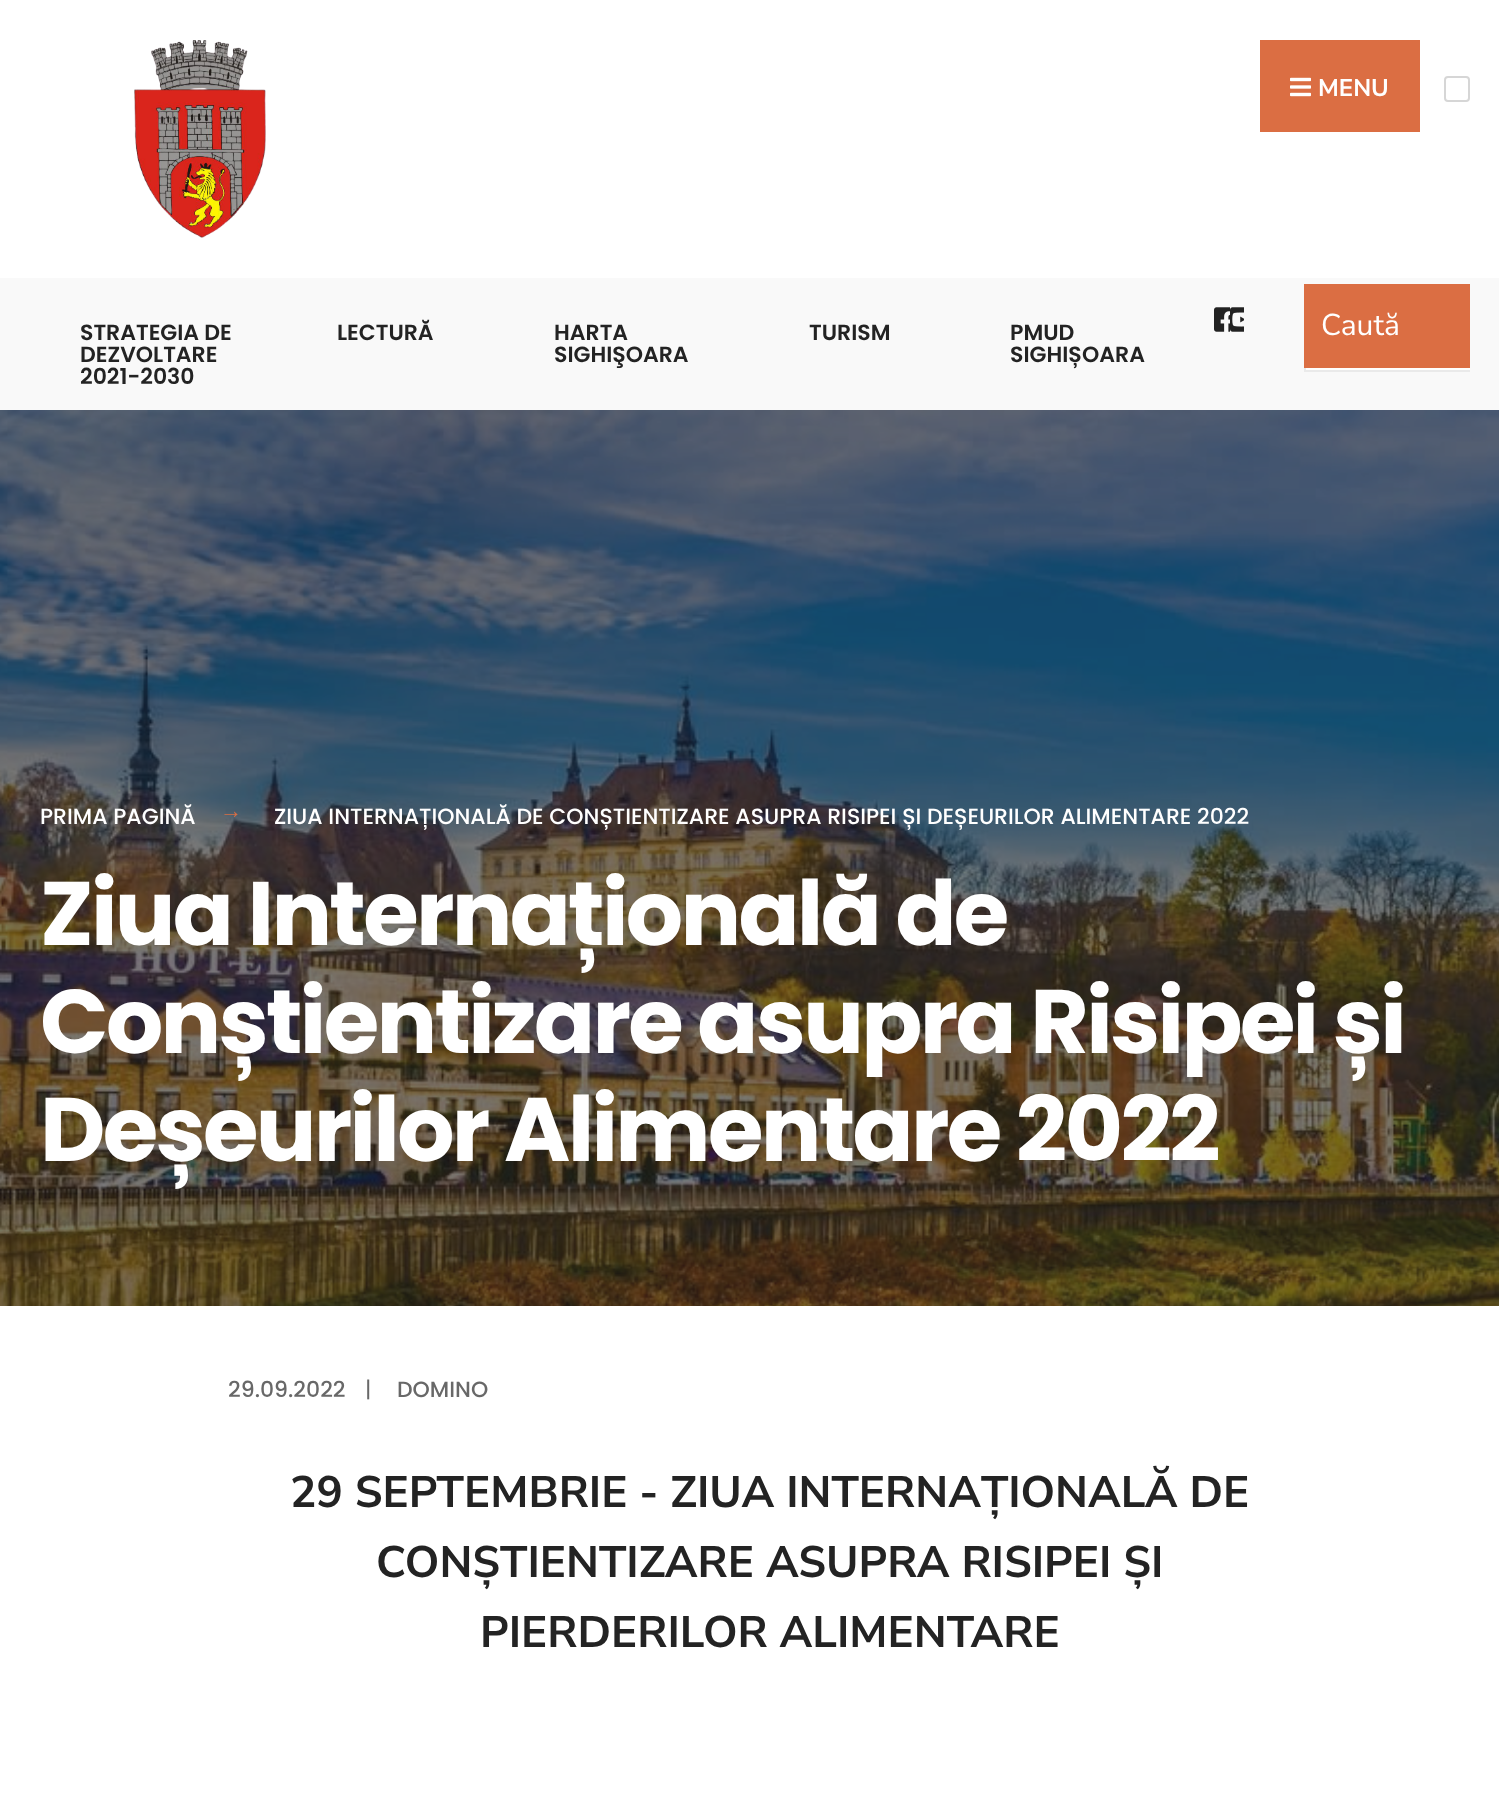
(async () => {
    const canvas = document.querySelector("canvas");
    canvas.width = 1499;
    canvas.height = 1802;
    const context = canvas.getContext("2d");
    context.miterLimit = 4;
    context.fontKerning = "normal";
    function write(s, x, y, font, color) {
        context.font = font;
        context.fillStyle = color;
        context.fillText(s, x, y);
    }
    function block(x, y, w, h, color) {
        context.fillStyle = color;
        context.fillRect(x, y, w, h);
    }
    async function photo(src, x, y, w, h) {
        const img = new Image();
        img.src = src;
        await img.decode();
        context.drawImage(img, x, y, w, h);
    }

    block(0, 0, 1499, 1802, "rgb(255, 255, 255)");
    await photo("media/1.png", 134, 40, 132, 198);
    block(1260, 40, 160, 92, "rgb(219, 110, 67)");
    await photo("media/2.png", 1290, 77, 21, 20);
    write("MENU", 1318, 96, "bold 24px Nunito Sans", "rgb(255, 255, 255)");
    context.beginPath();
    context.roundRect(1445, 77, 24, 24, 3);
    context.strokeStyle = "rgb(214, 214, 214)";
    context.lineWidth = 2;
    context.stroke();
    block(0, 278, 1499, 132, "rgb(249, 249, 249)");
    write("STRATEGIA DE", 80, 340, "600 22px Poppins", "rgb(35, 35, 35)");
    write("DEZVOLTARE", 80, 362, "600 22px Poppins", "rgb(35, 35, 35)");
    write("2021-2030", 80, 384, "600 22px Poppins", "rgb(35, 35, 35)");
    write("LECTURĂ", 337, 340, "600 22px Poppins", "rgb(35, 35, 35)");
    write("HARTA", 554, 340, "600 22px Poppins", "rgb(35, 35, 35)");
    write("SIGHIŞOARA", 554, 362, "600 22px Poppins", "rgb(35, 35, 35)");
    write("TURISM", 809, 340, "600 22px Poppins", "rgb(35, 35, 35)");
    write("PMUD", 1010, 340, "600 22px Poppins", "rgb(35, 35, 35)");
    write("SIGHIȘOARA", 1010, 362, "600 22px Poppins", "rgb(35, 35, 35)");
    await photo("media/3.png", 1214, 307, 16, 25);
    await photo("media/4.png", 1230, 307, 14, 25);
    block(1306, 368, 164, 2, "rgb(255, 255, 255)");
    context.save();
    context.beginPath();
    context.rect(1304, 284, 166, 126);
    context.clip();
    context.strokeStyle = "rgb(234, 234, 234)";
    context.strokeRect(1305, 285, 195, 86);
    context.restore();
    block(1304, 284, 166, 84, "rgb(219, 110, 67)");
    write("Caută", 1321, 335, "30px Nunito Sans", "rgb(255, 255, 255)");
    block(0, 410, 1499, 896, "rgb(30, 30, 30)");
    await photo("media/5.png", 0, 410, 1499, 896);
    write("PRIMA PAGINĂ", 40, 824, "500 22px Poppins", "rgb(255, 255, 255)");
    write("→", 220, 818, "22px Liberation Serif", "rgb(219, 110, 67)");
    write("ZIUA INTERNAȚIONALĂ DE CONȘTIENTIZARE ASUPRA RISIPEI ȘI DEȘEURILOR ALIMENTARE 2022", 274, 824, "500 22px Poppins", "rgb(255, 255, 255)");
    context.letterSpacing = "-2.7px";
    write("Ziua Internațională de", 40, 945, "bold 90px Poppins", "rgb(255, 255, 255)");
    write("Conștientizare asupra Risipei și", 40, 1053, "bold 90px Poppins", "rgb(255, 255, 255)");
    write("Deșeurilor Alimentare 2022", 40, 1161, "bold 90px Poppins", "rgb(255, 255, 255)");
    context.letterSpacing = "0px";
    write("29.09.2022", 228, 1397, "500 22px Poppins", "rgb(104, 104, 104)");
    write("|", 365, 1397, "22px Poppins", "rgb(104, 104, 104)");
    write("DOMINO", 397, 1397, "500 22px Poppins", "rgb(104, 104, 104)");
    write("29 SEPTEMBRIE - ZIUA INTERNAȚIONALĂ DE", 290, 1507, "bold 44px Nunito Sans", "rgb(35, 35, 35)");
    write("CONȘTIENTIZARE ASUPRA RISIPEI ȘI", 376, 1577, "bold 44px Nunito Sans", "rgb(35, 35, 35)");
    write("PIERDERILOR ALIMENTARE", 480, 1647, "bold 44px Nunito Sans", "rgb(35, 35, 35)");
})();
